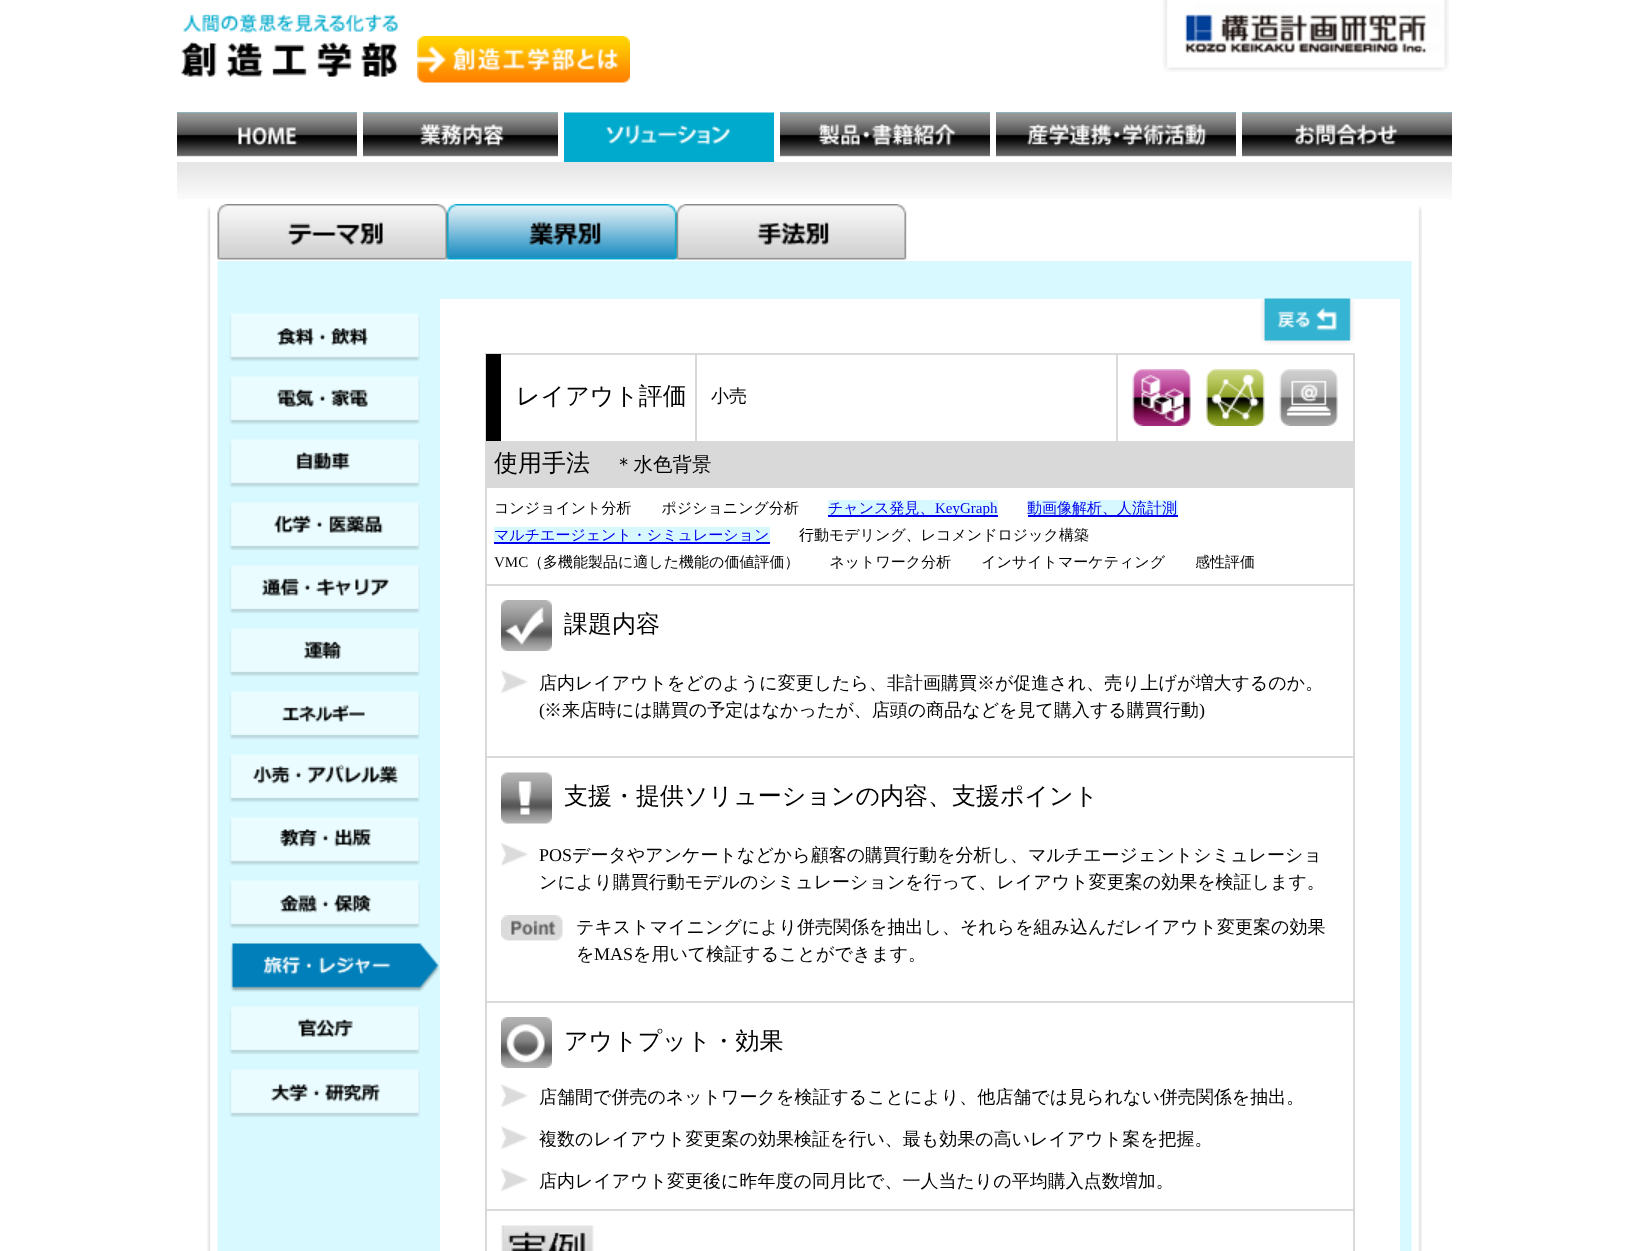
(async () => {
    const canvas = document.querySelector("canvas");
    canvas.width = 1629;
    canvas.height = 1251;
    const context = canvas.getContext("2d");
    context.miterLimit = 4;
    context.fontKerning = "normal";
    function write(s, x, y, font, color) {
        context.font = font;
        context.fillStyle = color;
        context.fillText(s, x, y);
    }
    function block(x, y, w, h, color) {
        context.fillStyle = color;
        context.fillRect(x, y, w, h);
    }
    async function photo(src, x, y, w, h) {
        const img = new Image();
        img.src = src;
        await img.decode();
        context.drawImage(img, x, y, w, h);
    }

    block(0, 0, 1629, 1251, "rgb(255, 255, 255)");
    await photo("media/1.png", 181, 13, 217, 64);
    await photo("media/2.png", 417, 36, 213, 47);
    await photo("media/3.png", 1162, 0, 287, 72);
    await photo("media/4.png", 177, 162, 1275, 37);
    await photo("media/5.png", 177, 112, 180, 1);
    await photo("media/6.png", 177, 112, 180, 50);
    await photo("media/7.png", 363, 112, 195, 1);
    await photo("media/8.png", 363, 112, 195, 50);
    await photo("media/9.png", 564, 112, 210, 50);
    await photo("media/10.png", 780, 112, 210, 1);
    await photo("media/11.png", 780, 112, 210, 50);
    await photo("media/12.png", 996, 112, 240, 1);
    await photo("media/13.png", 996, 112, 240, 50);
    await photo("media/10.png", 1242, 112, 210, 1);
    await photo("media/14.png", 1242, 112, 210, 50);
    await photo("media/15.png", 207, 204, 1215, 57);
    await photo("media/16.png", 207, 261, 1215, 990);
    await photo("media/17.png", 229, 313, 191, 49);
    await photo("media/18.png", 229, 376, 191, 49);
    await photo("media/19.png", 229, 439, 191, 49);
    await photo("media/20.png", 229, 502, 191, 49);
    await photo("media/21.png", 229, 565, 191, 49);
    await photo("media/22.png", 229, 628, 191, 49);
    await photo("media/23.png", 229, 691, 191, 49);
    await photo("media/24.png", 229, 754, 191, 49);
    await photo("media/25.png", 229, 817, 191, 49);
    await photo("media/26.png", 229, 880, 191, 49);
    await photo("media/27.png", 230, 943, 210, 49);
    await photo("media/28.png", 229, 1006, 191, 49);
    await photo("media/29.png", 229, 1069, 191, 49);
    block(440, 299, 960, 952, "rgb(255, 255, 255)");
    await photo("media/30.png", 1260, 298, 95, 47);
    context.strokeStyle = "rgb(217, 217, 217)";
    context.lineWidth = 2;
    context.strokeRect(486, 354, 868, 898);
    block(486, 354, 15, 87, "rgb(0, 0, 0)");
    write("レイアウト評価", 516, 404, "500 24px WenQuanYi Zen Hei", "rgb(0, 0, 0)");
    block(695, 354, 2, 87, "rgb(217, 217, 217)");
    write("小売", 711, 402, "500 18px WenQuanYi Zen Hei", "rgb(0, 0, 0)");
    block(1116, 354, 2, 87, "rgb(217, 217, 217)");
    await photo("media/31.png", 1132, 369, 59, 57);
    await photo("media/32.png", 1206, 369, 59, 57);
    await photo("media/33.png", 1279, 369, 59, 57);
    block(487, 441, 866, 47, "rgb(217, 217, 217)");
    write("使用手法", 494, 471, "500 24px WenQuanYi Zen Hei", "rgb(0, 0, 0)");
    write("＊水色背景", 614, 471, "500 19.5px WenQuanYi Zen Hei", "rgb(0, 0, 0)");
    write("コンジョイント分析　　ポジショニング分析", 494, 513, "500 15px WenQuanYi Zen Hei", "rgb(0, 0, 0)");
    block(828, 500, 170, 15, "rgb(215, 248, 255)");
    write("チャンス発見、", 828, 513, "500 15px WenQuanYi Zen Hei", "rgb(0, 0, 238)");
    block(828, 515, 170, 2, "rgb(0, 0, 238)");
    write("KeyGraph", 935, 513, "15px Liberation Serif", "rgb(0, 0, 238)");
    block(1028, 500, 150, 15, "rgb(215, 248, 255)");
    block(1028, 515, 150, 2, "rgb(0, 0, 238)");
    write("動画像解析、人流計測", 1027, 513, "500 15px WenQuanYi Zen Hei", "rgb(0, 0, 238)");
    block(494, 527, 276, 15, "rgb(215, 248, 255)");
    write("マルチエージェント・シミュレーション", 494, 540, "500 15px WenQuanYi Zen Hei", "rgb(0, 0, 238)");
    block(494, 542, 276, 2, "rgb(0, 0, 238)");
    write("行動モデリング、レコメンドロジック構築", 799, 540, "500 15px WenQuanYi Zen Hei", "rgb(0, 0, 0)");
    write("VMC", 494, 567, "15px Liberation Serif", "rgb(0, 0, 0)");
    write("（多機能製品に適した機能の価値評価）　　ネットワーク分析　　インサイトマーケティング　　感性評価", 528, 567, "500 15px WenQuanYi Zen Hei", "rgb(0, 0, 0)");
    block(486, 584, 867, 2, "rgb(217, 217, 217)");
    await photo("media/34.png", 501, 600, 51, 51);
    write("課題内容", 564, 632, "500 24px WenQuanYi Zen Hei", "rgb(0, 0, 0)");
    await photo("media/35.png", 501, 670, 27, 23);
    write("店内レイアウトをどのように変更したら、非計画購買※が促進され、売り上げが増大するのか。", 539, 689, "500 18px WenQuanYi Zen Hei", "rgb(0, 0, 0)");
    write("(", 539, 716, "18px Liberation Serif", "rgb(0, 0, 0)");
    write("※来店時には購買の予定はなかったが、店頭の商品などを見て購入する購買行動", 544, 716, "500 18px WenQuanYi Zen Hei", "rgb(0, 0, 0)");
    write(")", 1199, 716, "18px Liberation Serif", "rgb(0, 0, 0)");
    block(486, 756, 867, 2, "rgb(217, 217, 217)");
    await photo("media/36.png", 501, 772, 51, 52);
    write("支援・提供ソリューションの内容、支援ポイント", 564, 804, "500 24px WenQuanYi Zen Hei", "rgb(0, 0, 0)");
    await photo("media/37.png", 501, 843, 27, 23);
    write("POS", 539, 861, "18px Liberation Serif", "rgb(0, 0, 0)");
    write("データやアンケートなどから顧客の購買行動を分析し、マルチエージェントシミュレーショ", 572, 861, "500 18px WenQuanYi Zen Hei", "rgb(0, 0, 0)");
    write("ンにより購買行動モデルのシミュレーションを行って、レイアウト変更案の効果を検証します。", 539, 888, "500 18px WenQuanYi Zen Hei", "rgb(0, 0, 0)");
    await photo("media/38.png", 501, 915, 62, 26);
    write("テキストマイニングにより併売関係を抽出し、それらを組み込んだレイアウト変更案の効果", 576, 933, "500 18px WenQuanYi Zen Hei", "rgb(0, 0, 0)");
    write("を", 576, 960, "500 18px WenQuanYi Zen Hei", "rgb(0, 0, 0)");
    write("MAS", 594, 960, "18px Liberation Serif", "rgb(0, 0, 0)");
    write("を用いて検証することができます。", 633, 960, "500 18px WenQuanYi Zen Hei", "rgb(0, 0, 0)");
    block(486, 1001, 867, 2, "rgb(217, 217, 217)");
    await photo("media/39.png", 501, 1017, 51, 51);
    write("アウトプット・効果", 564, 1049, "500 24px WenQuanYi Zen Hei", "rgb(0, 0, 0)");
    await photo("media/35.png", 501, 1084, 27, 23);
    write("店舗間で併売のネットワークを検証することにより、他店舗では見られない併売関係を抽出。", 539, 1103, "500 18px WenQuanYi Zen Hei", "rgb(0, 0, 0)");
    await photo("media/35.png", 501, 1126, 27, 23);
    write("複数のレイアウト変更案の効果検証を行い、最も効果の高いレイアウト案を把握。", 539, 1145, "500 18px WenQuanYi Zen Hei", "rgb(0, 0, 0)");
    await photo("media/35.png", 501, 1168, 27, 23);
    write("店内レイアウト変更後に昨年度の同月比で、一人当たりの平均購入点数増加。", 539, 1187, "500 18px WenQuanYi Zen Hei", "rgb(0, 0, 0)");
    block(486, 1209, 867, 2, "rgb(217, 217, 217)");
    await photo("media/40.png", 501, 1225, 93, 26);
})();
